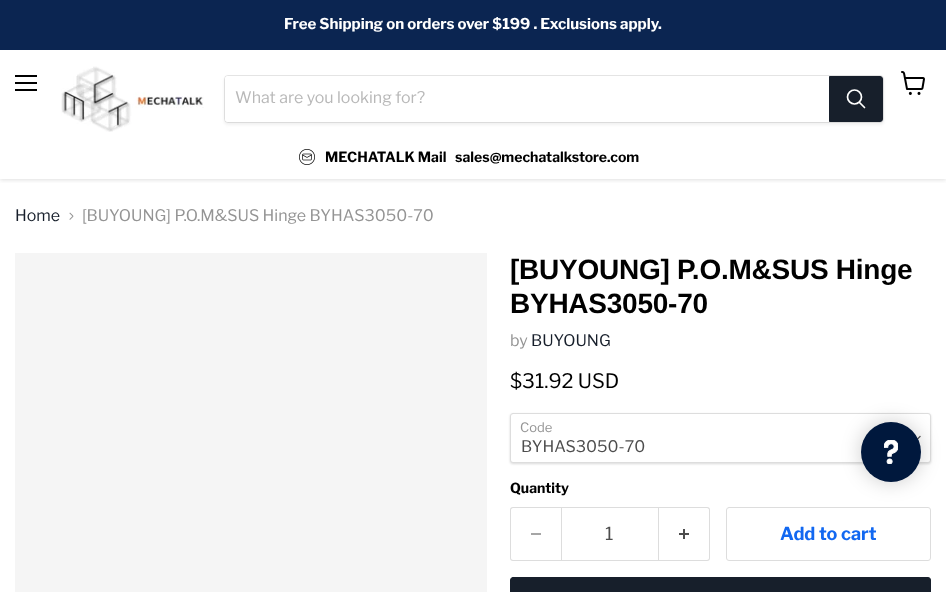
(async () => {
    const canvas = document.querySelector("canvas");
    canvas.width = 946;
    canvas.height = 592;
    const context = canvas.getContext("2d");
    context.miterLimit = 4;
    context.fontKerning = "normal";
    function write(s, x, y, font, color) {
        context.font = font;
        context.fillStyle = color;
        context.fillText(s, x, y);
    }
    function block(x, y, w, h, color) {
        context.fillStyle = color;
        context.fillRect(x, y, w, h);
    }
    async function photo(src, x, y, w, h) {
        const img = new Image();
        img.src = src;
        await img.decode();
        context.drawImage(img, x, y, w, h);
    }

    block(0, 0, 946, 592, "rgb(255, 255, 255)");
    context.save();
    context.beginPath();
    context.rect(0, 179, 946, 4);
    context.clip();
    context.fillStyle = "rgba(128, 128, 128, 0.25)";
    context.filter = "blur(2px)";
    context.beginPath();
    context.rect(0, 51, 946, 129);
    context.fill();
    context.filter = "none";
    context.restore();
    block(0, 0, 946, 50, "rgb(11, 37, 81)");
    write("Free Shipping on orders over $199 . Exclusions apply.", 284, 29, "bold 15px Libre Franklin", "rgb(255, 255, 255)");
    block(15, 75, 22, 2, "rgb(0, 0, 0)");
    block(15, 82, 22, 2, "rgb(0, 0, 0)");
    block(15, 89, 22, 2, "rgb(0, 0, 0)");
    await photo("media/1.png", 901, 71, 24, 24);
    await photo("media/2.png", 61, 66, 143, 66);
    context.fillStyle = "rgba(128, 128, 128, 0.11)";
    context.filter = "blur(1.5px)";
    context.beginPath();
    context.roundRect(224, 77, 660, 48, 4);
    context.fill();
    context.filter = "none";
    context.beginPath();
    context.roundRect(224.5, 75.5, 659, 47, 3.5);
    context.strokeStyle = "rgba(128, 128, 128, 0.2)";
    context.stroke();
    context.fillStyle = "rgb(255, 255, 255)";
    context.beginPath();
    context.roundRect(225, 76, 604, 46, [3, 0, 0, 3]);
    context.fill();
    write("What are you looking for?", 235, 103, "16px Libre Franklin", "rgb(184, 184, 184)");
    context.fillStyle = "rgb(23, 31, 43)";
    context.beginPath();
    context.roundRect(829.5, 76.5, 53, 45, [0, 2.5, 2.5, 0]);
    context.fill();
    context.strokeStyle = "rgb(23, 31, 43)";
    context.stroke();
    context.beginPath();
    context.moveTo(864.5, 107.5);
    context.lineTo(859.5, 102.5);
    context.strokeStyle = "rgb(255, 255, 255)";
    context.lineWidth = 1.7;
    context.lineCap = "round";
    context.stroke();
    context.beginPath();
    context.arc(854.5, 97, 7, 0, Math.PI * 2);
    context.stroke();
    await photo("media/3.png", 299, 149, 16, 16);
    write("MECHATALK Mail", 325, 162, "bold 14px Libre Franklin", "rgb(0, 0, 0)");
    write("sales@mechatalkstore.com", 455, 162, "bold 14px Libre Franklin", "rgb(0, 0, 0)");
    write("Home", 15, 221, "16px Libre Franklin", "rgb(23, 31, 43)");
    await photo("media/4.png", 69, 212, 5, 8);
    write("[BUYOUNG] P.O.M&SUS Hinge BYHAS3050-70", 82, 221, "16px Libre Franklin", "rgb(148, 148, 148)");
    block(15, 253, 472, 339, "rgb(245, 245, 245)");
    context.letterSpacing = "-0.25px";
    write("[BUYOUNG] P.O.M&SUS Hinge", 510, 279, "bold 28px Arimo", "rgb(0, 0, 0)");
    write("BYHAS3050-70", 510, 313, "bold 28px Arimo", "rgb(0, 0, 0)");
    context.letterSpacing = "0px";
    write("by", 510, 346, "16px Libre Franklin", "rgb(148, 148, 148)");
    write("BUYOUNG", 531, 346, "16px Libre Franklin", "rgb(23, 31, 43)");
    write("$31.92 USD", 510, 388, "20px Libre Franklin", "rgb(0, 0, 0)");
    context.fillStyle = "rgba(0, 0, 0, 0.15)";
    context.filter = "blur(1px)";
    context.beginPath();
    context.roundRect(510, 414, 421, 50, 3);
    context.fill();
    context.filter = "none";
    context.fillStyle = "rgb(255, 255, 255)";
    context.beginPath();
    context.roundRect(510.5, 413.5, 420, 49, 2.5);
    context.fill();
    context.strokeStyle = "rgb(221, 221, 221)";
    context.lineWidth = 1;
    context.stroke();
    write("Code", 520, 432, "13px Libre Franklin", "rgb(148, 148, 148)");
    await photo("media/5.png", 917, 435, 4, 5);
    write("BYHAS3050-70", 521, 452, "16px Libre Franklin", "rgb(77, 77, 77)");
    write("Quantity", 510, 493, "bold 14px Libre Franklin", "rgb(0, 0, 0)");
    context.fillStyle = "rgb(221, 221, 221)";
    context.beginPath();
    context.moveTo(513, 507);
    context.lineTo(561, 507);
    context.lineTo(561, 561);
    context.lineTo(513, 561);
    context.bezierCurveTo(511, 561, 510, 560, 510, 558);
    context.lineTo(510, 510);
    context.bezierCurveTo(510, 508, 511, 507, 513, 507);
    context.closePath();
    context.moveTo(513, 508);
    context.lineTo(561, 508);
    context.lineTo(561, 560);
    context.lineTo(513, 560);
    context.bezierCurveTo(512, 560, 511, 559, 511, 558);
    context.lineTo(511, 510);
    context.bezierCurveTo(511, 509, 512, 508, 513, 508);
    context.closePath();
    context.fill("evenodd");
    block(531, 533, 10, 2, "rgb(166, 166, 166)");
    context.strokeRect(561.5, 507.5, 97, 53);
    write("1", 605, 540, "18px Libre Franklin", "rgb(77, 77, 77)");
    context.fillStyle = "rgb(221, 221, 221)";
    context.beginPath();
    context.moveTo(659, 507);
    context.lineTo(707, 507);
    context.bezierCurveTo(709, 507, 710, 508, 710, 510);
    context.lineTo(710, 558);
    context.bezierCurveTo(710, 560, 709, 561, 707, 561);
    context.lineTo(659, 561);
    context.closePath();
    context.moveTo(659, 508);
    context.lineTo(707, 508);
    context.bezierCurveTo(708, 508, 709, 509, 709, 510);
    context.lineTo(709, 558);
    context.bezierCurveTo(709, 559, 708, 560, 707, 560);
    context.lineTo(659, 560);
    context.closePath();
    context.fill("evenodd");
    await photo("media/6.png", 679, 529, 10, 10);
    context.beginPath();
    context.roundRect(726.5, 507.5, 204, 53, 2.5);
    context.stroke();
    write("Add to cart", 780, 540, "bold 18px Libre Franklin", "rgb(18, 104, 241)");
    context.fillStyle = "rgb(23, 31, 43)";
    context.beginPath();
    context.roundRect(510.5, 577.5, 420, 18, 2.5);
    context.fill();
    context.strokeStyle = "rgb(23, 31, 43)";
    context.stroke();
    context.fillStyle = "rgba(0, 0, 0, 0.2)";
    context.filter = "blur(10px)";
    context.beginPath();
    context.roundRect(861, 422, 60, 60, 30);
    context.fill();
    context.filter = "none";
    context.fillStyle = "rgb(0, 24, 61)";
    context.beginPath();
    context.arc(891, 452, 30, 0, Math.PI * 2);
    context.fill();
    await photo("media/7.png", 884, 440, 14, 24);
})();
